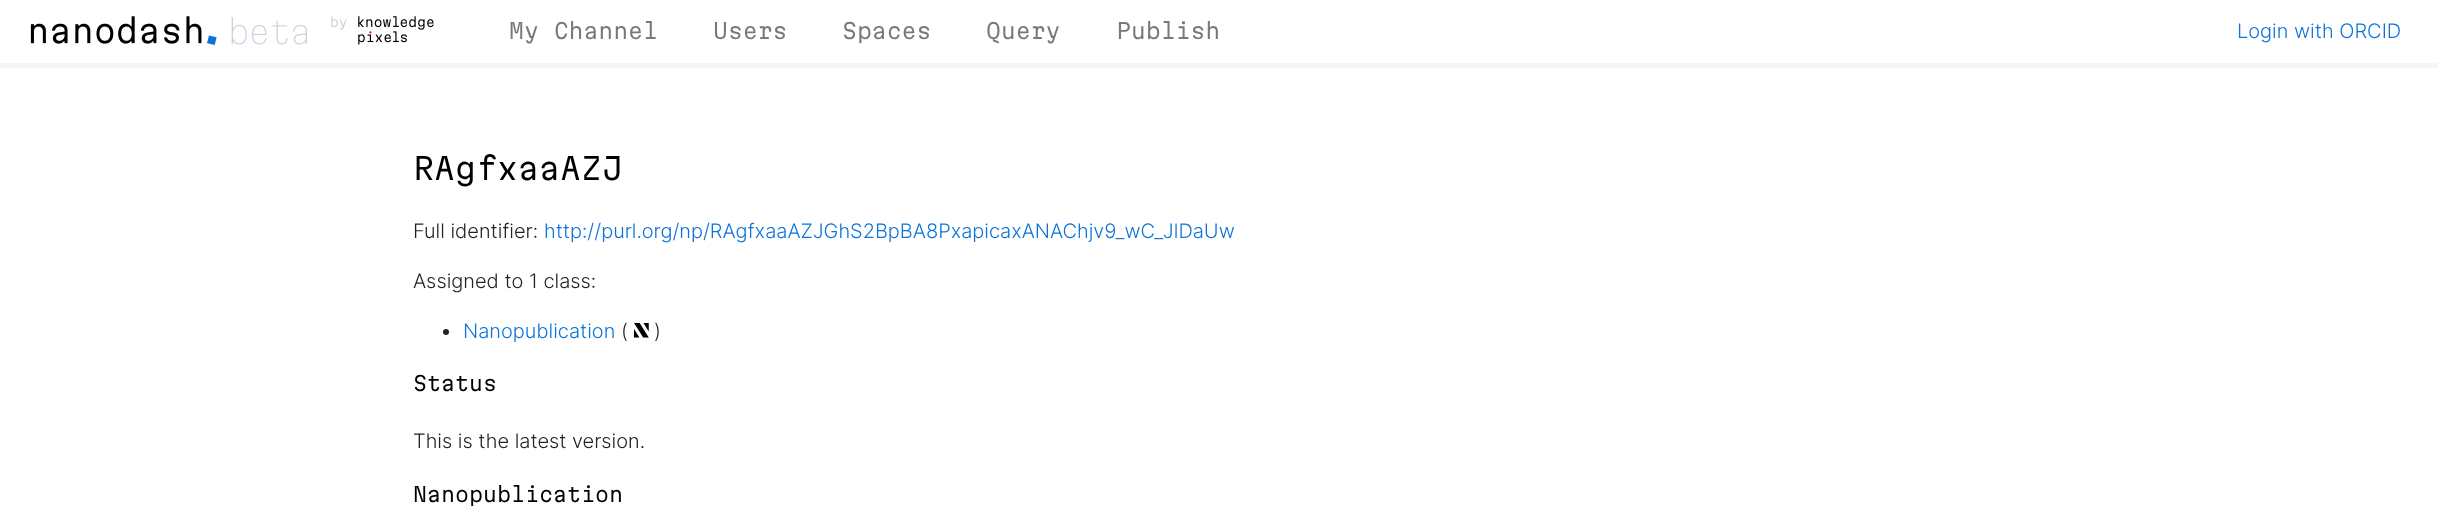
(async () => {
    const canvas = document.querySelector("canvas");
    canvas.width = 2438;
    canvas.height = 514;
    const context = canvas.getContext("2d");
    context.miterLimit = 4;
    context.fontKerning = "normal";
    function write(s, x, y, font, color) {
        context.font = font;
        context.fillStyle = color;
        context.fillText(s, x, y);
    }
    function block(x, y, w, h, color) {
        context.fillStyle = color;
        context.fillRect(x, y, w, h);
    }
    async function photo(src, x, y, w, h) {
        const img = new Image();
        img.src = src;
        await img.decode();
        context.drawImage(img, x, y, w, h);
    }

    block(0, 0, 2438, 514, "rgb(255, 255, 255)");
    block(0, 63, 2438, 5, "rgb(243, 246, 249)");
    await photo("media/1.png", 30, 16, 277, 29);
    await photo("media/2.png", 331, 16, 103, 29);
    write("My Channel", 509, 39, "300 21.25px Martian Mono", "rgb(118, 121, 123)");
    write("Users", 713, 39, "300 21.25px Martian Mono", "rgb(118, 121, 123)");
    write("Spaces", 842, 39, "300 21.25px Martian Mono", "rgb(118, 121, 123)");
    write("Query", 986, 39, "300 21.25px Martian Mono", "rgb(118, 121, 123)");
    write("Publish", 1116, 39, "300 21.25px Martian Mono", "rgb(118, 121, 123)");
    write("Login with ORCID", 2237, 38, "300 20px Inter", "rgb(11, 115, 218)");
    write("RAgfxaaAZJ", 413, 180, "300 30px Martian Mono", "rgb(0, 0, 0)");
    write("Full identifier:", 413, 238, "300 20px Inter", "rgb(34, 34, 34)");
    write("http://purl.org/np/RAgfxaaAZJGhS2BpBA8PxapicaxANAChjv9_wC_JlDaUw", 544, 238, "300 20px Inter", "rgb(11, 115, 218)");
    write("Assigned to 1 class:", 413, 288, "300 20px Inter", "rgb(34, 34, 34)");
    context.beginPath();
    context.arc(446, 332, 3, 0, Math.PI * 2);
    context.fill();
    write("Nanopublication", 463, 338, "300 20px Inter", "rgb(11, 115, 218)");
    write("(", 621, 338, "300 20px Inter", "rgb(34, 34, 34)");
    await photo("media/3.png", 634, 323, 15, 15);
    write(")", 654, 338, "300 20px Inter", "rgb(34, 34, 34)");
    write("Status", 413, 391, "300 20px Martian Mono", "rgb(0, 0, 0)");
    write("This is the latest version.", 413, 448, "300 20px Inter", "rgb(34, 34, 34)");
    write("Nanopublication", 413, 502, "300 20px Martian Mono", "rgb(0, 0, 0)");
})();
